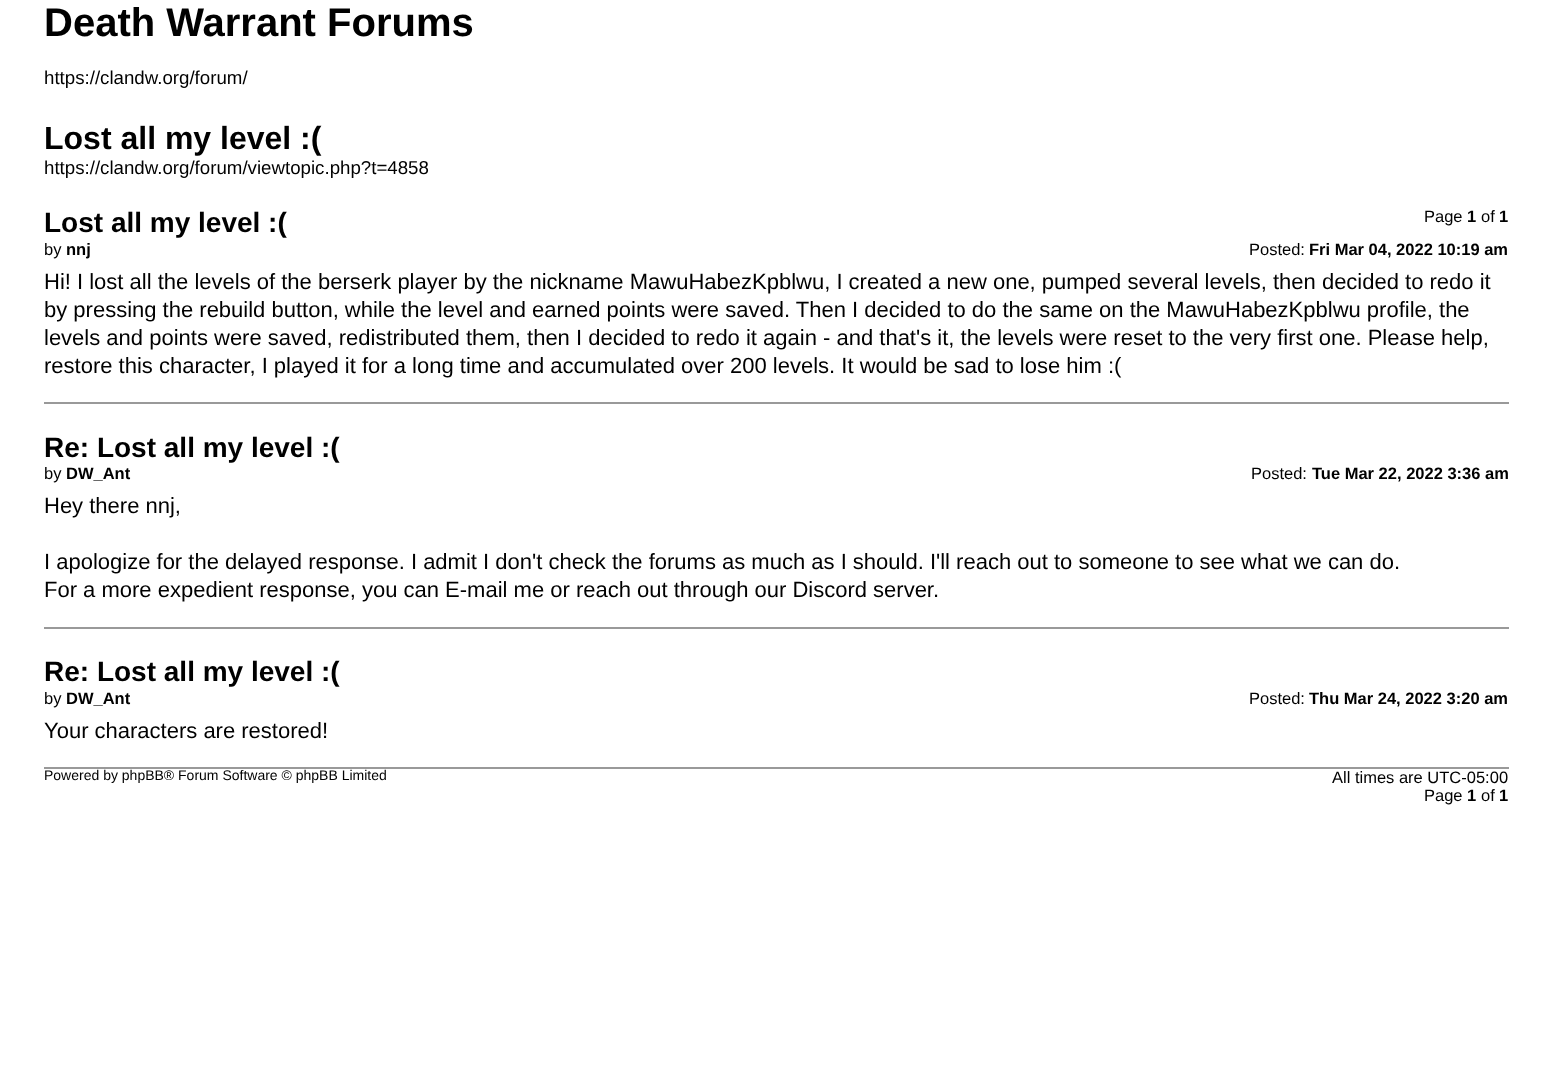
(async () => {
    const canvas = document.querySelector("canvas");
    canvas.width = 1552;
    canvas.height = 1083;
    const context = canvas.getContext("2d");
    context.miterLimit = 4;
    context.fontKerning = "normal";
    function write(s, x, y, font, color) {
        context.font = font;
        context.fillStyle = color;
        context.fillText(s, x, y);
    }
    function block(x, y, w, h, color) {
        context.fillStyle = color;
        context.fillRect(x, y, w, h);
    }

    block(0, 0, 1552, 1083, "rgb(255, 255, 255)");
    write("Death Warrant Forums", 44, 36, "bold 40px Liberation Sans", "rgb(0, 0, 0)");
    write("https://clandw.org/forum/", 44, 84, "18.7px Liberation Sans", "rgb(0, 0, 0)");
    write("Lost all my level :(", 44, 149, "bold 32px Liberation Sans", "rgb(0, 0, 0)");
    write("https://clandw.org/forum/viewtopic.php?t=4858", 44, 174, "18.7px Liberation Sans", "rgb(0, 0, 0)");
    write("Page", 1424, 222, "16.5px Liberation Sans", "rgb(0, 0, 0)");
    write("1", 1467, 222, "bold 16.5px Liberation Sans", "rgb(0, 0, 0)");
    write("of", 1481, 222, "16.5px Liberation Sans", "rgb(0, 0, 0)");
    write("1", 1499, 222, "bold 16.5px Liberation Sans", "rgb(0, 0, 0)");
    write("Lost all my level :(", 44, 232, "bold 28px Liberation Sans", "rgb(0, 0, 0)");
    write("by", 44, 255, "16.5px Liberation Sans", "rgb(0, 0, 0)");
    write("nnj", 66, 255, "bold 16.5px Liberation Sans", "rgb(0, 0, 0)");
    write("Posted:", 1249, 255, "16.5px Liberation Sans", "rgb(0, 0, 0)");
    write("Fri Mar 04, 2022 10:19 am", 1309, 255, "bold 16.5px Liberation Sans", "rgb(0, 0, 0)");
    write("Hi! I lost all the levels of the berserk player by the nickname MawuHabezKpblwu, I created a new one, pumped several levels, then decided to redo it", 44, 289, "22px Liberation Sans", "rgb(0, 0, 0)");
    write("by pressing the rebuild button, while the level and earned points were saved. Then I decided to do the same on the MawuHabezKpblwu profile, the", 44, 317, "22px Liberation Sans", "rgb(0, 0, 0)");
    write("levels and points were saved, redistributed them, then I decided to redo it again - and that's it, the levels were reset to the very first one. Please help,", 44, 345, "22px Liberation Sans", "rgb(0, 0, 0)");
    write("restore this character, I played it for a long time and accumulated over 200 levels. It would be sad to lose him :(", 44, 373, "22px Liberation Sans", "rgb(0, 0, 0)");
    block(44, 402, 1465, 2, "rgb(153, 153, 153)");
    write("Re: Lost all my level :(", 44, 457, "bold 28px Liberation Sans", "rgb(0, 0, 0)");
    write("by", 44, 479, "16.5px Liberation Sans", "rgb(0, 0, 0)");
    write("DW_Ant", 66, 479, "bold 16.5px Liberation Sans", "rgb(0, 0, 0)");
    write("Posted:", 1251, 479, "16.5px Liberation Sans", "rgb(0, 0, 0)");
    write("Tue Mar 22, 2022 3:36 am", 1312, 479, "bold 16.5px Liberation Sans", "rgb(0, 0, 0)");
    write("Hey there nnj,", 44, 513, "22px Liberation Sans", "rgb(0, 0, 0)");
    write("I apologize for the delayed response. I admit I don't check the forums as much as I should. I'll reach out to someone to see what we can do.", 44, 569, "22px Liberation Sans", "rgb(0, 0, 0)");
    write("For a more expedient response, you can E-mail me or reach out through our Discord server.", 44, 597, "22px Liberation Sans", "rgb(0, 0, 0)");
    block(44, 627, 1465, 2, "rgb(153, 153, 153)");
    write("Re: Lost all my level :(", 44, 681, "bold 28px Liberation Sans", "rgb(0, 0, 0)");
    write("by", 44, 704, "16.5px Liberation Sans", "rgb(0, 0, 0)");
    write("DW_Ant", 66, 704, "bold 16.5px Liberation Sans", "rgb(0, 0, 0)");
    write("Posted:", 1249, 704, "16.5px Liberation Sans", "rgb(0, 0, 0)");
    write("Thu Mar 24, 2022 3:20 am", 1309, 704, "bold 16.5px Liberation Sans", "rgb(0, 0, 0)");
    write("Your characters are restored!", 44, 738, "22px Liberation Sans", "rgb(0, 0, 0)");
    block(44, 767, 1465, 2, "rgb(153, 153, 153)");
    write("Powered by phpBB® Forum Software © phpBB Limited", 44, 780, "14px Liberation Sans", "rgb(0, 0, 0)");
    write("All times are UTC-05:00", 1332, 783, "16.5px Liberation Sans", "rgb(0, 0, 0)");
    write("Page", 1424, 801, "16.5px Liberation Sans", "rgb(0, 0, 0)");
    write("1", 1467, 801, "bold 16.5px Liberation Sans", "rgb(0, 0, 0)");
    write("of", 1481, 801, "16.5px Liberation Sans", "rgb(0, 0, 0)");
    write("1", 1499, 801, "bold 16.5px Liberation Sans", "rgb(0, 0, 0)");
})();
